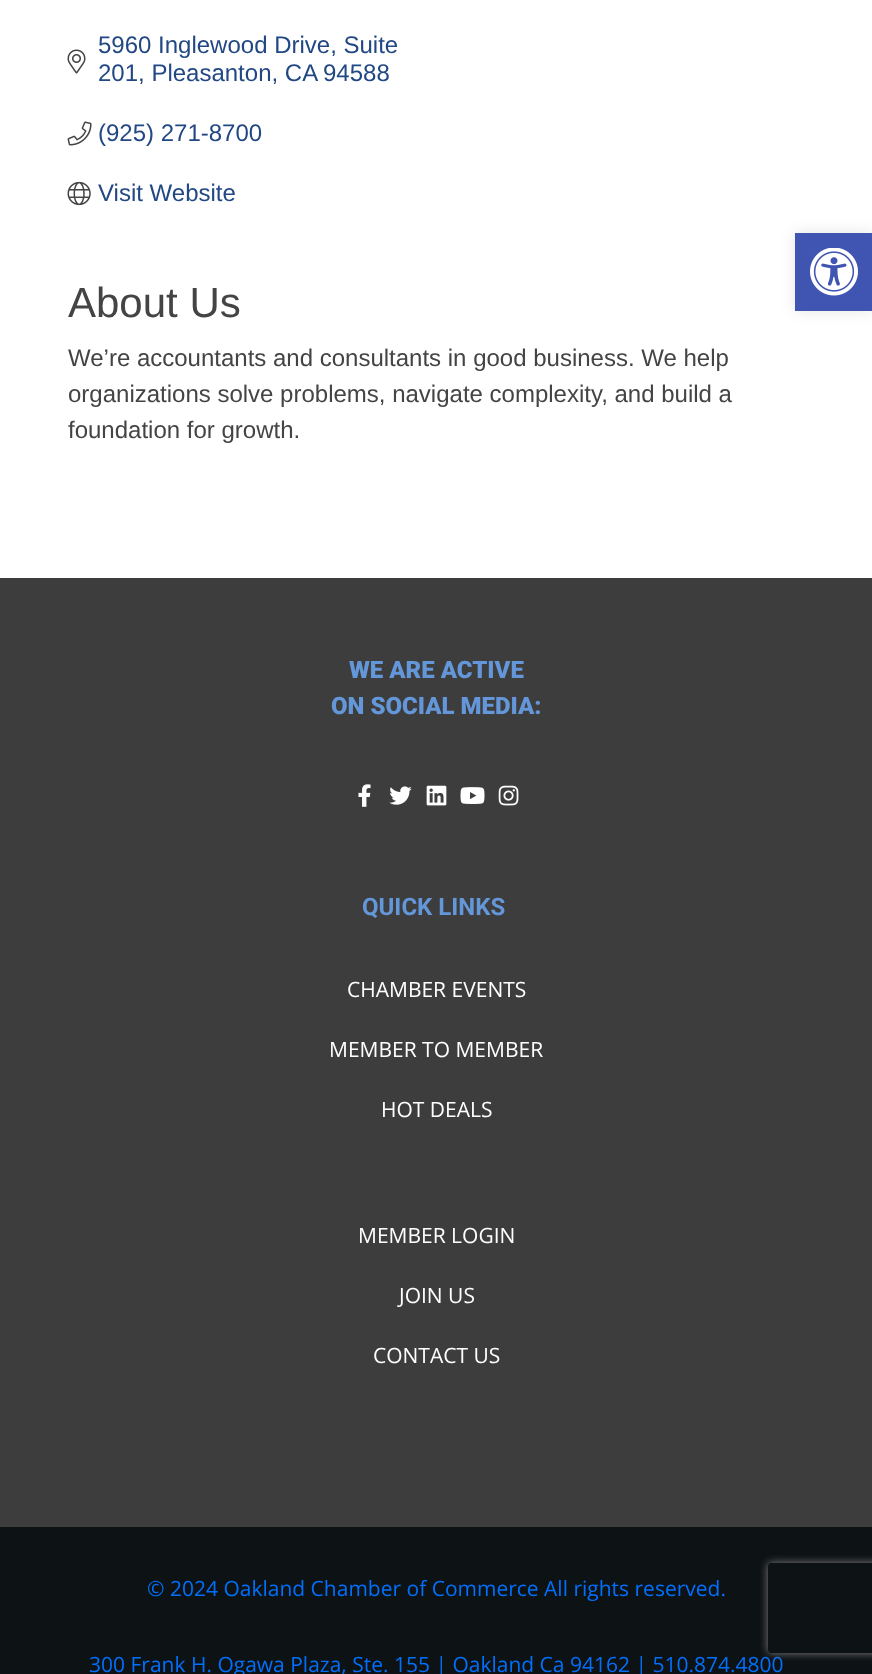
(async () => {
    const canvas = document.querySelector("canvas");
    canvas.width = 872;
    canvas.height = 1674;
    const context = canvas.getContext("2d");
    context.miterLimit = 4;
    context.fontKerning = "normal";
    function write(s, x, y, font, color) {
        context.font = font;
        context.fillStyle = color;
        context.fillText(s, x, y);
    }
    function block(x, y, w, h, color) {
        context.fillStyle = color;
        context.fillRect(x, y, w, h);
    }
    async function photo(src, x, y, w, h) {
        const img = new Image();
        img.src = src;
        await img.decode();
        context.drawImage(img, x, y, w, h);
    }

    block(0, 0, 872, 1674, "rgb(255, 255, 255)");
    write("5960 Inglewood Drive, Suite", 98, 53, "24px Liberation Sans", "rgb(34, 72, 132)");
    await photo("media/1.png", 67, 49, 19, 25);
    write("201, Pleasanton, CA", 98, 81, "24px Liberation Sans", "rgb(34, 72, 132)");
    write("94588", 323, 81, "24px Liberation Sans", "rgb(34, 72, 132)");
    await photo("media/2.png", 67, 121, 25, 25);
    write("(925) 271-8700", 98, 141, "24px Liberation Sans", "rgb(34, 72, 132)");
    await photo("media/3.png", 67, 181, 24, 25);
    write("Visit Website", 98, 201, "24px Liberation Sans", "rgb(34, 72, 132)");
    write("About Us", 68, 317, "42px Liberation Sans", "rgb(68, 68, 68)");
    write("We’re accountants and consultants in good business. We help", 68, 366, "24px Liberation Sans", "rgb(68, 68, 68)");
    write("organizations solve problems, navigate complexity, and build a", 68, 402, "24px Liberation Sans", "rgb(68, 68, 68)");
    write("foundation for growth.", 68, 438, "24px Liberation Sans", "rgb(68, 68, 68)");
    block(0, 578, 872, 949, "rgb(61, 61, 61)");
    write("WE ARE ACTIVE", 349, 678, "900 24px Roboto", "rgb(100, 151, 217)");
    write("ON SOCIAL MEDIA:", 331, 714, "900 24px Roboto", "rgb(100, 151, 217)");
    await photo("media/4.png", 358, 784, 13, 23);
    await photo("media/5.png", 389, 786, 23, 19);
    await photo("media/6.png", 426, 785, 21, 21);
    await photo("media/7.png", 460, 787, 25, 17);
    await photo("media/8.png", 498, 785, 21, 21);
    write("QUICK LINKS", 362, 915, "bold 24px Roboto", "rgb(100, 151, 217)");
    write("CHAMBER EVENTS", 347, 997, "21px Open Sans", "rgb(255, 255, 255)");
    write("MEMBER TO MEMBER", 329, 1057, "21px Open Sans", "rgb(255, 255, 255)");
    write("HOT DEALS", 381, 1117, "21px Open Sans", "rgb(255, 255, 255)");
    write("MEMBER LOGIN", 358, 1243, "21px Open Sans", "rgb(255, 255, 255)");
    write("JOIN US", 399, 1303, "21px Open Sans", "rgb(255, 255, 255)");
    write("CONTACT US", 373, 1363, "21px Open Sans", "rgb(255, 255, 255)");
    block(0, 1527, 872, 147, "rgb(13, 18, 20)");
    write("© 2024 Oakland Chamber of Commerce All rights reserved.", 147, 1596, "21px Open Sans", "rgb(2, 111, 252)");
    write("300 Frank H. Ogawa Plaza, Ste. 155 | Oakland Ca 94162 | 510.874.4800", 89, 1672, "21px Open Sans", "rgb(2, 111, 252)");
    context.fillStyle = "rgba(0, 0, 0, 0.1)";
    context.filter = "blur(7.5px)";
    context.beginPath();
    context.rect(795, 233, 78, 78);
    context.fill();
    context.filter = "none";
    block(795, 233, 77, 78, "rgb(64, 84, 178)");
    await photo("media/9.png", 810, 248, 48, 48);
    context.save();
    context.beginPath();
    context.moveTo(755, 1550);
    context.lineTo(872, 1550);
    context.lineTo(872, 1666);
    context.lineTo(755, 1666);
    context.closePath();
    context.moveTo(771, 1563);
    context.lineTo(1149, 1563);
    context.bezierCurveTo(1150.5, 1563, 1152, 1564.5, 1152, 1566);
    context.lineTo(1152, 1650);
    context.bezierCurveTo(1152, 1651.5, 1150.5, 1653, 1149, 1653);
    context.lineTo(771, 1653);
    context.bezierCurveTo(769.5, 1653, 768, 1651.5, 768, 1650);
    context.lineTo(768, 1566);
    context.bezierCurveTo(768, 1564.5, 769.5, 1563, 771, 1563);
    context.closePath();
    context.clip("evenodd");
    context.fillStyle = "rgb(128, 128, 128)";
    context.filter = "blur(4px)";
    context.beginPath();
    context.roundRect(768, 1563, 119, 90, 3);
    context.fill();
    context.filter = "none";
    context.restore();
})();
